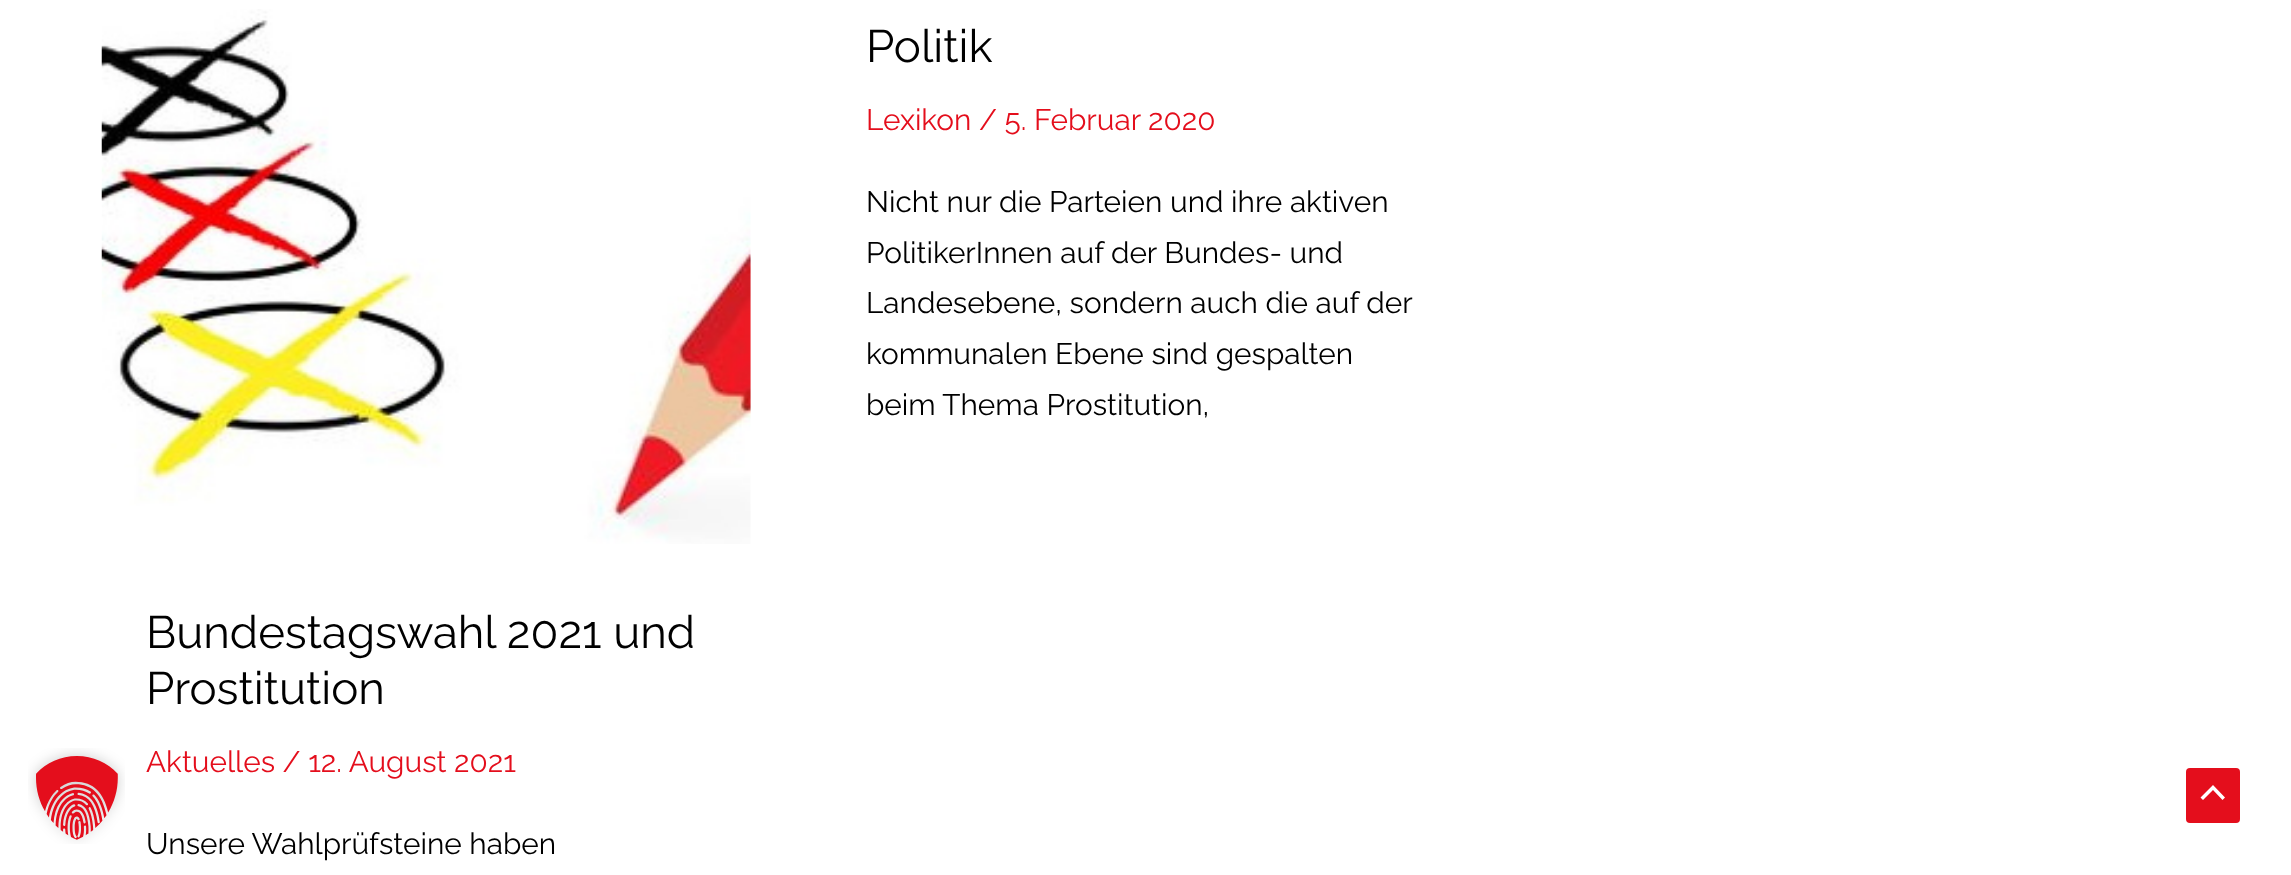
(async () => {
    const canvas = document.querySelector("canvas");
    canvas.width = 2291;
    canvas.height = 875;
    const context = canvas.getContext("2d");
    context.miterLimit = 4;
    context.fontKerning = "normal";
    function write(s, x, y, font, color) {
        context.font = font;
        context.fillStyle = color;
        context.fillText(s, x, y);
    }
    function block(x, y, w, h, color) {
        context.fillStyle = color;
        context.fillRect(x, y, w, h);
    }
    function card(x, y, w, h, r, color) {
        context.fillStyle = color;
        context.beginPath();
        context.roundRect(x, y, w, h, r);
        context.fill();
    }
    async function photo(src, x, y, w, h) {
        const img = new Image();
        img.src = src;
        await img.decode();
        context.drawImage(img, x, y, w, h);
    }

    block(0, 0, 2291, 875, "rgb(255, 255, 255)");
    await photo("media/1.png", 28, 748, 97, 96);
    write("Politik", 866, 62, "45.5px Raleway", "rgb(0, 0, 0)");
    write("Lexikon / 5. Februar 2020", 866, 130, "29.75px Raleway", "rgb(228, 14, 28)");
    write("Nicht nur die Parteien und ihre aktiven", 866, 212, "29.75px Raleway", "rgb(0, 0, 0)");
    write("PolitikerInnen auf der Bundes- und", 866, 263, "29.75px Raleway", "rgb(0, 0, 0)");
    write("Landesebene, sondern auch die auf der", 866, 313, "29.75px Raleway", "rgb(0, 0, 0)");
    write("kommunalen Ebene sind gespalten", 866, 364, "29.75px Raleway", "rgb(0, 0, 0)");
    write("beim Thema Prostitution,", 866, 415, "29.75px Raleway", "rgb(0, 0, 0)");
    await photo("media/2.png", 101, 9, 650, 535);
    write("Bundestagswahl 2021 und", 146, 648, "45.5px Raleway", "rgb(0, 0, 0)");
    write("Prostitution", 146, 704, "45.5px Raleway", "rgb(0, 0, 0)");
    write("Aktuelles / 12. August 2021", 146, 772, "29.75px Raleway", "rgb(228, 14, 28)");
    write("Unsere Wahlprüfsteine haben", 146, 854, "29.75px Raleway", "rgb(0, 0, 0)");
    card(2186, 768, 54, 55, 4, "rgb(228, 14, 28)");
    context.fillStyle = "rgb(255, 255, 255)";
    context.beginPath();
    context.moveTo(2225, 797.5);
    context.lineTo(2213, 785);
    context.lineTo(2200.5, 797.5);
    context.lineTo(2203, 800);
    context.lineTo(2213, 790);
    context.lineTo(2222.5, 800);
    context.closePath();
    context.fill();
})();
